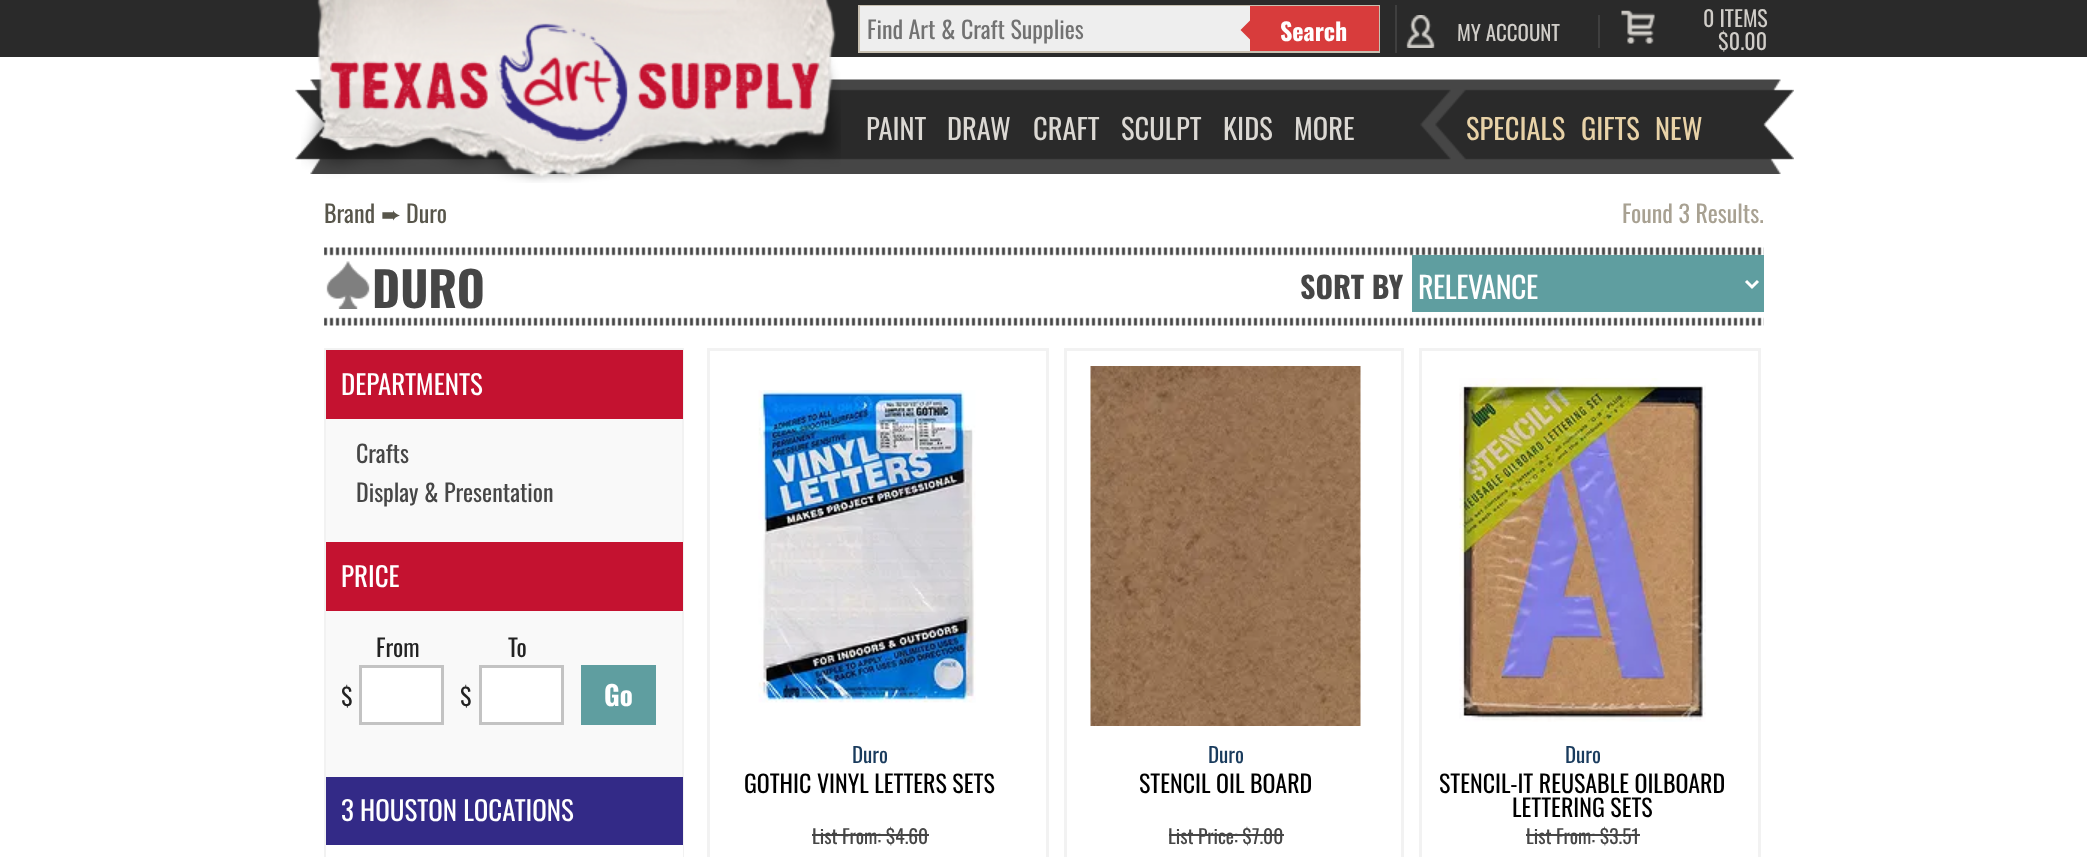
(async () => {
    const canvas = document.querySelector("canvas");
    canvas.width = 2087;
    canvas.height = 857;
    const context = canvas.getContext("2d");
    context.miterLimit = 4;
    context.fontKerning = "normal";
    function write(s, x, y, font, color) {
        context.font = font;
        context.fillStyle = color;
        context.fillText(s, x, y);
    }
    function block(x, y, w, h, color) {
        context.fillStyle = color;
        context.fillRect(x, y, w, h);
    }
    async function photo(src, x, y, w, h) {
        const img = new Image();
        img.src = src;
        await img.decode();
        context.drawImage(img, x, y, w, h);
    }

    block(0, 0, 2087, 857, "rgb(255, 255, 255)");
    block(0, 0, 2087, 57, "rgb(42, 42, 42)");
    await photo("media/5.png", 295, 79, 1499, 95);
    await photo("media/1.png", 301, 0, 540, 183);
    await photo("media/2.png", 330, 23, 490, 121);
    block(1395, 5, 2, 48, "rgb(63, 63, 63)");
    block(858, 5, 522, 48, "rgb(200, 192, 177)");
    block(860, 6, 390, 45, "rgb(238, 238, 238)");
    write("Find Art & Craft Supplies", 867, 39, "24px Oswald", "rgb(114, 114, 114)");
    block(1250, 6, 129, 45, "rgb(216, 60, 60)");
    context.beginPath();
    context.moveTo(1252.5, 18);
    context.lineTo(1252.5, 42);
    context.lineTo(1240.5, 30);
    context.closePath();
    context.fill();
    write("Search", 1280, 41, "bold 24px Oswald", "rgb(255, 255, 255)");
    await photo("media/3.png", 1406, 15, 29, 33);
    block(1598, 15, 2, 33, "rgb(63, 63, 63)");
    write("MY ACCOUNT", 1457, 41, "21px Oswald", "rgb(208, 205, 200)");
    await photo("media/4.png", 1621, 10, 34, 34);
    write("0 ITEMS", 1703, 27, "22px Oswald", "rgb(208, 205, 200)");
    write("$0.00", 1718, 50, "22px Oswald", "rgb(208, 205, 200)");
    write("PAINT", 866, 140, "28.5px Oswald", "rgb(219, 216, 211)");
    write("DRAW", 947, 140, "28.5px Oswald", "rgb(219, 216, 211)");
    write("CRAFT", 1033, 140, "28.5px Oswald", "rgb(219, 216, 211)");
    write("SCULPT", 1121, 140, "28.5px Oswald", "rgb(219, 216, 211)");
    write("KIDS", 1223, 140, "28.5px Oswald", "rgb(219, 216, 211)");
    write("MORE", 1294, 140, "28.5px Oswald", "rgb(219, 216, 211)");
    write("SPECIALS", 1466, 140, "28.5px Oswald", "rgb(232, 210, 167)");
    write("GIFTS", 1581, 140, "28.5px Oswald", "rgb(232, 210, 167)");
    write("NEW", 1655, 140, "28.5px Oswald", "rgb(232, 210, 167)");
    write("Brand", 324, 223, "24px Oswald", "rgb(88, 86, 75)");
    write("➨", 381, 223, "24px DejaVu Sans", "rgb(88, 86, 75)");
    write("Duro", 406, 223, "24px Oswald", "rgb(88, 86, 75)");
    write("Found 3 Results.", 1622, 223, "24px Oswald", "rgb(168, 161, 146)");
    await photo("media/6.png", 324, 247, 1440, 79);
    await photo("media/7.png", 326, 261, 44, 48);
    write("DURO", 372, 308, "bold 48px Oswald", "rgb(70, 70, 70)");
    write("SORT BY", 1300, 299, "bold 30px Oswald", "rgb(70, 70, 70)");
    block(1412, 255, 352, 57, "rgb(95, 158, 160)");
    context.beginPath();
    context.moveTo(1746, 281);
    context.lineTo(1752, 287);
    context.lineTo(1758, 281);
    context.strokeStyle = "rgb(255, 255, 255)";
    context.lineWidth = 3;
    context.stroke();
    context.letterSpacing = "-0.5px";
    write("RELEVANCE", 1418, 299, "30px Oswald", "rgb(255, 255, 255)");
    block(326, 419, 356, 358, "rgb(249, 249, 249)");
    context.strokeStyle = "rgb(242, 242, 242)";
    context.lineWidth = 2;
    context.strokeRect(325, 349, 358, 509);
    block(326, 350, 357, 69, "rgb(196, 18, 48)");
    context.letterSpacing = "0px";
    write("DEPARTMENTS", 341, 395, "27px Oswald", "rgb(255, 255, 255)");
    write("Crafts", 356, 463, "24px Oswald", "rgb(70, 70, 70)");
    write("Display & Presentation", 356, 502, "24px Oswald", "rgb(70, 70, 70)");
    block(326, 542, 357, 69, "rgb(196, 18, 48)");
    write("PRICE", 341, 587, "27px Oswald", "rgb(255, 255, 255)");
    write("From", 376, 657, "24px Oswald", "rgb(34, 34, 34)");
    write("$", 341, 706, "24px Oswald", "rgb(34, 34, 34)");
    context.fillStyle = "rgb(255, 255, 255)";
    context.beginPath();
    context.rect(360.5, 666.5, 82, 57);
    context.fill();
    context.strokeStyle = "rgb(195, 195, 195)";
    context.lineWidth = 3;
    context.stroke();
    write("To", 508, 657, "24px Oswald", "rgb(34, 34, 34)");
    write("$", 460, 706, "24px Oswald", "rgb(34, 34, 34)");
    context.fillStyle = "rgb(255, 255, 255)";
    context.beginPath();
    context.rect(480.5, 666.5, 82, 57);
    context.fill();
    context.stroke();
    block(581, 665, 75, 60, "rgb(95, 158, 160)");
    write("Go", 604, 706, "bold 27px Oswald", "rgb(255, 255, 255)");
    block(682, 845, 1, 12, "rgb(255, 255, 255)");
    block(326, 777, 357, 68, "rgb(51, 42, 135)");
    write("3 HOUSTON LOCATIONS", 341, 821, "27px Oswald", "rgb(255, 255, 255)");
    context.strokeStyle = "rgb(242, 242, 242)";
    context.strokeRect(708.5, 349.5, 339, 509);
    await photo("media/8.png", 758, 390, 218, 313);
    write("Duro", 852, 763, "21px Oswald", "rgb(25, 59, 93)");
    write("GOTHIC VINYL LETTERS SETS", 744, 793, "24px Oswald", "rgb(0, 0, 0)");
    write("List From: $4.60", 812, 844, "19.5px Oswald", "rgb(70, 70, 70)");
    block(812, 834, 117, 2, "rgb(70, 70, 70)");
    context.strokeRect(1065.5, 349.5, 337, 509);
    await photo("media/9.png", 1090, 366, 271, 360);
    write("Duro", 1208, 763, "21px Oswald", "rgb(25, 59, 93)");
    write("STENCIL OIL BOARD", 1139, 793, "24px Oswald", "rgb(0, 0, 0)");
    write("List Price: $7.00", 1168, 844, "19.5px Oswald", "rgb(70, 70, 70)");
    block(1169, 834, 115, 2, "rgb(70, 70, 70)");
    context.strokeRect(1420.5, 349.5, 339, 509);
    await photo("media/10.png", 1459, 378, 247, 344);
    write("Duro", 1565, 763, "21px Oswald", "rgb(25, 59, 93)");
    write("STENCIL-IT REUSABLE OILBOARD", 1439, 793, "24px Oswald", "rgb(0, 0, 0)");
    write("LETTERING SETS", 1512, 817, "24px Oswald", "rgb(0, 0, 0)");
    write("List From: $3.51", 1526, 844, "19.5px Oswald", "rgb(70, 70, 70)");
    block(1526, 834, 114, 2, "rgb(70, 70, 70)");
})();
